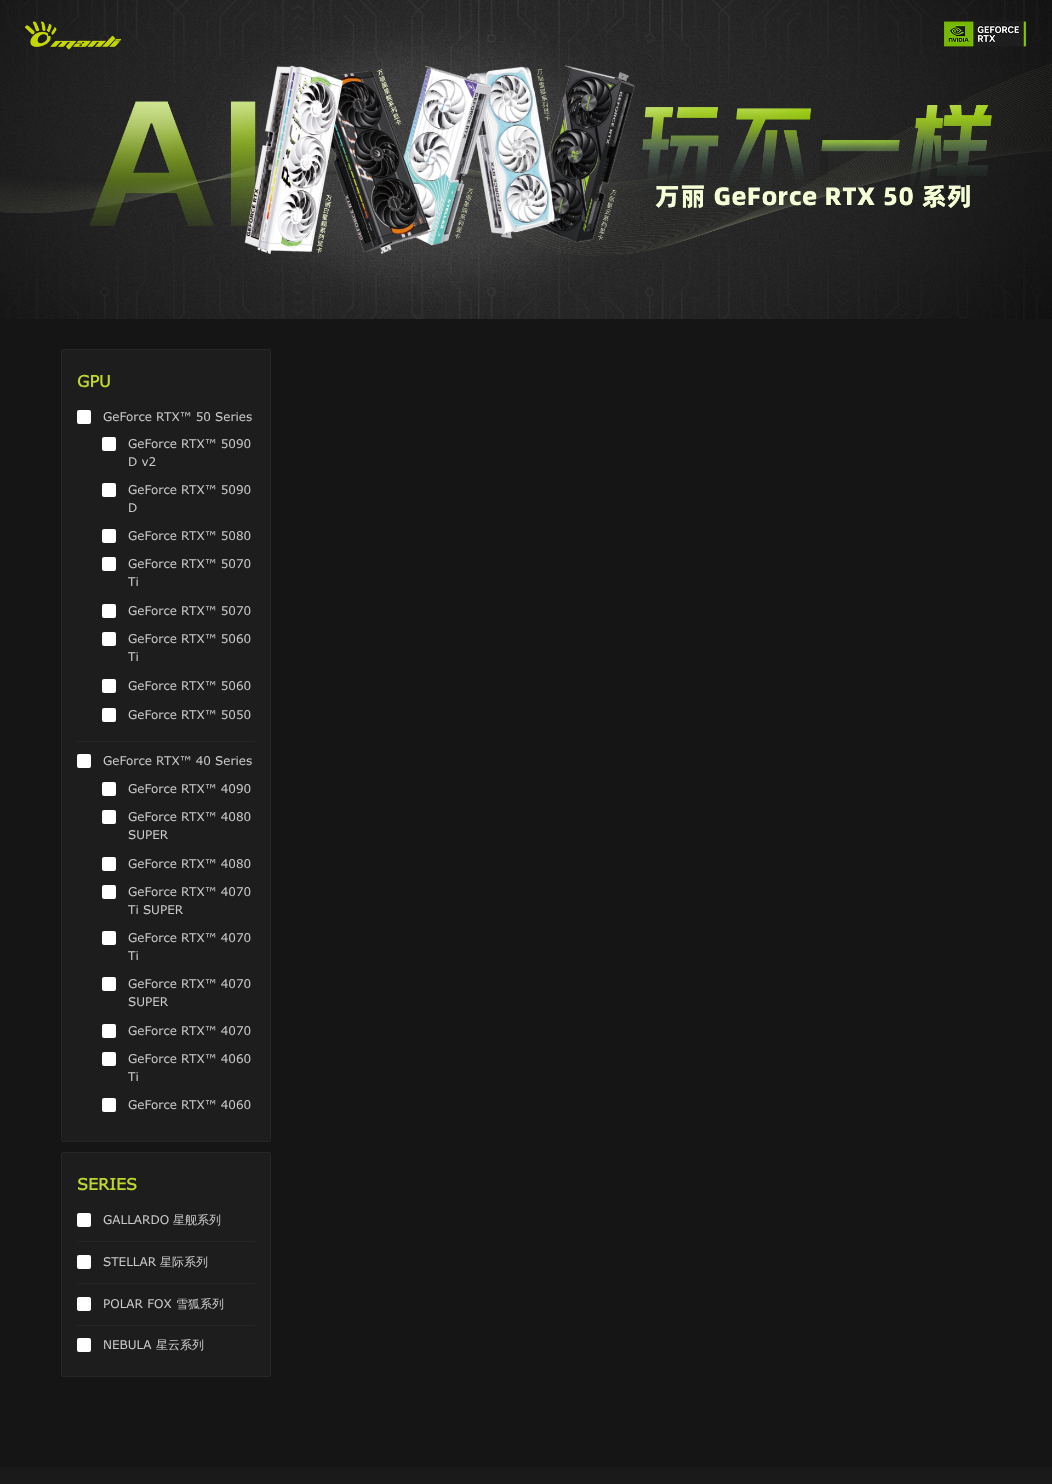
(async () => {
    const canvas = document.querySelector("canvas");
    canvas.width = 1052;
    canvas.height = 1484;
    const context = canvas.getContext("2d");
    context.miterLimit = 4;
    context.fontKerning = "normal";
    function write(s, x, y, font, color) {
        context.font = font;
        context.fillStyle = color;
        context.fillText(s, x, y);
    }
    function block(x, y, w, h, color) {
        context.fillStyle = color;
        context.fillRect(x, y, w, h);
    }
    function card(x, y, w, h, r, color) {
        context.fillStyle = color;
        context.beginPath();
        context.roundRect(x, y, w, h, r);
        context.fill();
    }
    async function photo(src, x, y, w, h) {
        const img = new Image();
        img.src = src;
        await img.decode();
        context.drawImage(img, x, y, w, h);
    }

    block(0, 0, 1052, 1484, "rgb(21, 21, 21)");
    await photo("media/1.png", 0, 0, 1052, 319);
    context.fillStyle = "rgb(29, 29, 29)";
    context.beginPath();
    context.roundRect(61.5, 349.5, 209, 792, 1.5);
    context.fill();
    context.strokeStyle = "rgb(38, 38, 38)";
    context.stroke();
    write("GPU", 77, 387, "bold 16px Verdana", "rgb(190, 214, 48)");
    block(77, 741, 178, 1, "rgb(38, 38, 38)");
    card(77, 410, 14, 14, 2, "rgb(255, 255, 255)");
    write("GeForce RTX™ 50 Series", 103, 421, "12px Verdana", "rgb(204, 204, 204)");
    card(102, 437, 14, 14, 2, "rgb(255, 255, 255)");
    write("GeForce RTX™ 5090", 128, 448, "12px Verdana", "rgb(204, 204, 204)");
    write("D v2", 128, 466, "12px Verdana", "rgb(204, 204, 204)");
    card(102, 483, 14, 14, 2, "rgb(255, 255, 255)");
    write("GeForce RTX™ 5090", 128, 494, "12px Verdana", "rgb(204, 204, 204)");
    write("D", 128, 512, "12px Verdana", "rgb(204, 204, 204)");
    card(102, 529, 14, 14, 2, "rgb(255, 255, 255)");
    write("GeForce RTX™ 5080", 128, 540, "12px Verdana", "rgb(204, 204, 204)");
    card(102, 557, 14, 14, 2, "rgb(255, 255, 255)");
    write("GeForce RTX™ 5070", 128, 568, "12px Verdana", "rgb(204, 204, 204)");
    write("Ti", 128, 586, "12px Verdana", "rgb(204, 204, 204)");
    card(102, 604, 14, 14, 2, "rgb(255, 255, 255)");
    write("GeForce RTX™ 5070", 128, 615, "12px Verdana", "rgb(204, 204, 204)");
    card(102, 632, 14, 14, 2, "rgb(255, 255, 255)");
    write("GeForce RTX™ 5060", 128, 643, "12px Verdana", "rgb(204, 204, 204)");
    write("Ti", 128, 661, "12px Verdana", "rgb(204, 204, 204)");
    card(102, 679, 14, 14, 2, "rgb(255, 255, 255)");
    write("GeForce RTX™ 5060", 128, 690, "12px Verdana", "rgb(204, 204, 204)");
    card(102, 708, 14, 14, 2, "rgb(255, 255, 255)");
    write("GeForce RTX™ 5050", 128, 719, "12px Verdana", "rgb(204, 204, 204)");
    card(77, 754, 14, 14, 2, "rgb(255, 255, 255)");
    write("GeForce RTX™ 40 Series", 103, 765, "12px Verdana", "rgb(204, 204, 204)");
    card(102, 782, 14, 14, 2, "rgb(255, 255, 255)");
    write("GeForce RTX™ 4090", 128, 793, "12px Verdana", "rgb(204, 204, 204)");
    card(102, 810, 14, 14, 2, "rgb(255, 255, 255)");
    write("GeForce RTX™ 4080", 128, 821, "12px Verdana", "rgb(204, 204, 204)");
    write("SUPER", 128, 839, "12px Verdana", "rgb(204, 204, 204)");
    card(102, 857, 14, 14, 2, "rgb(255, 255, 255)");
    write("GeForce RTX™ 4080", 128, 868, "12px Verdana", "rgb(204, 204, 204)");
    card(102, 885, 14, 14, 2, "rgb(255, 255, 255)");
    write("GeForce RTX™ 4070", 128, 896, "12px Verdana", "rgb(204, 204, 204)");
    write("Ti SUPER", 128, 914, "12px Verdana", "rgb(204, 204, 204)");
    card(102, 931, 14, 14, 2, "rgb(255, 255, 255)");
    write("GeForce RTX™ 4070", 128, 942, "12px Verdana", "rgb(204, 204, 204)");
    write("Ti", 128, 960, "12px Verdana", "rgb(204, 204, 204)");
    card(102, 977, 14, 14, 2, "rgb(255, 255, 255)");
    write("GeForce RTX™ 4070", 128, 988, "12px Verdana", "rgb(204, 204, 204)");
    write("SUPER", 128, 1006, "12px Verdana", "rgb(204, 204, 204)");
    card(102, 1024, 14, 14, 2, "rgb(255, 255, 255)");
    write("GeForce RTX™ 4070", 128, 1035, "12px Verdana", "rgb(204, 204, 204)");
    card(102, 1052, 14, 14, 2, "rgb(255, 255, 255)");
    write("GeForce RTX™ 4060", 128, 1063, "12px Verdana", "rgb(204, 204, 204)");
    write("Ti", 128, 1081, "12px Verdana", "rgb(204, 204, 204)");
    card(102, 1098, 14, 14, 2, "rgb(255, 255, 255)");
    write("GeForce RTX™ 4060", 128, 1109, "12px Verdana", "rgb(204, 204, 204)");
    context.fillStyle = "rgb(29, 29, 29)";
    context.beginPath();
    context.roundRect(61.5, 1152.5, 209, 224, 1.5);
    context.fill();
    context.stroke();
    write("SERIES", 77, 1190, "bold 16px Verdana", "rgb(190, 214, 48)");
    block(77, 1241, 178, 1, "rgb(38, 38, 38)");
    card(77, 1213, 14, 14, 2, "rgb(255, 255, 255)");
    write("GALLARDO", 103, 1224, "12px Verdana", "rgb(204, 204, 204)");
    write("星舰系列", 173, 1224, "500 12px WenQuanYi Zen Hei", "rgb(204, 204, 204)");
    block(77, 1283, 178, 1, "rgb(38, 38, 38)");
    card(77, 1255, 14, 14, 2, "rgb(255, 255, 255)");
    write("STELLAR", 103, 1266, "12px Verdana", "rgb(204, 204, 204)");
    write("星际系列", 160, 1266, "500 12px WenQuanYi Zen Hei", "rgb(204, 204, 204)");
    block(77, 1325, 178, 1, "rgb(38, 38, 38)");
    card(77, 1297, 14, 14, 2, "rgb(255, 255, 255)");
    write("POLAR FOX", 103, 1308, "12px Verdana", "rgb(204, 204, 204)");
    write("雪狐系列", 176, 1308, "500 12px WenQuanYi Zen Hei", "rgb(204, 204, 204)");
    card(77, 1338, 14, 14, 2, "rgb(255, 255, 255)");
    write("NEBULA", 103, 1349, "12px Verdana", "rgb(204, 204, 204)");
    write("星云系列", 156, 1349, "500 12px WenQuanYi Zen Hei", "rgb(204, 204, 204)");
    block(0, 1467, 1052, 17, "rgb(26, 26, 26)");
})();
